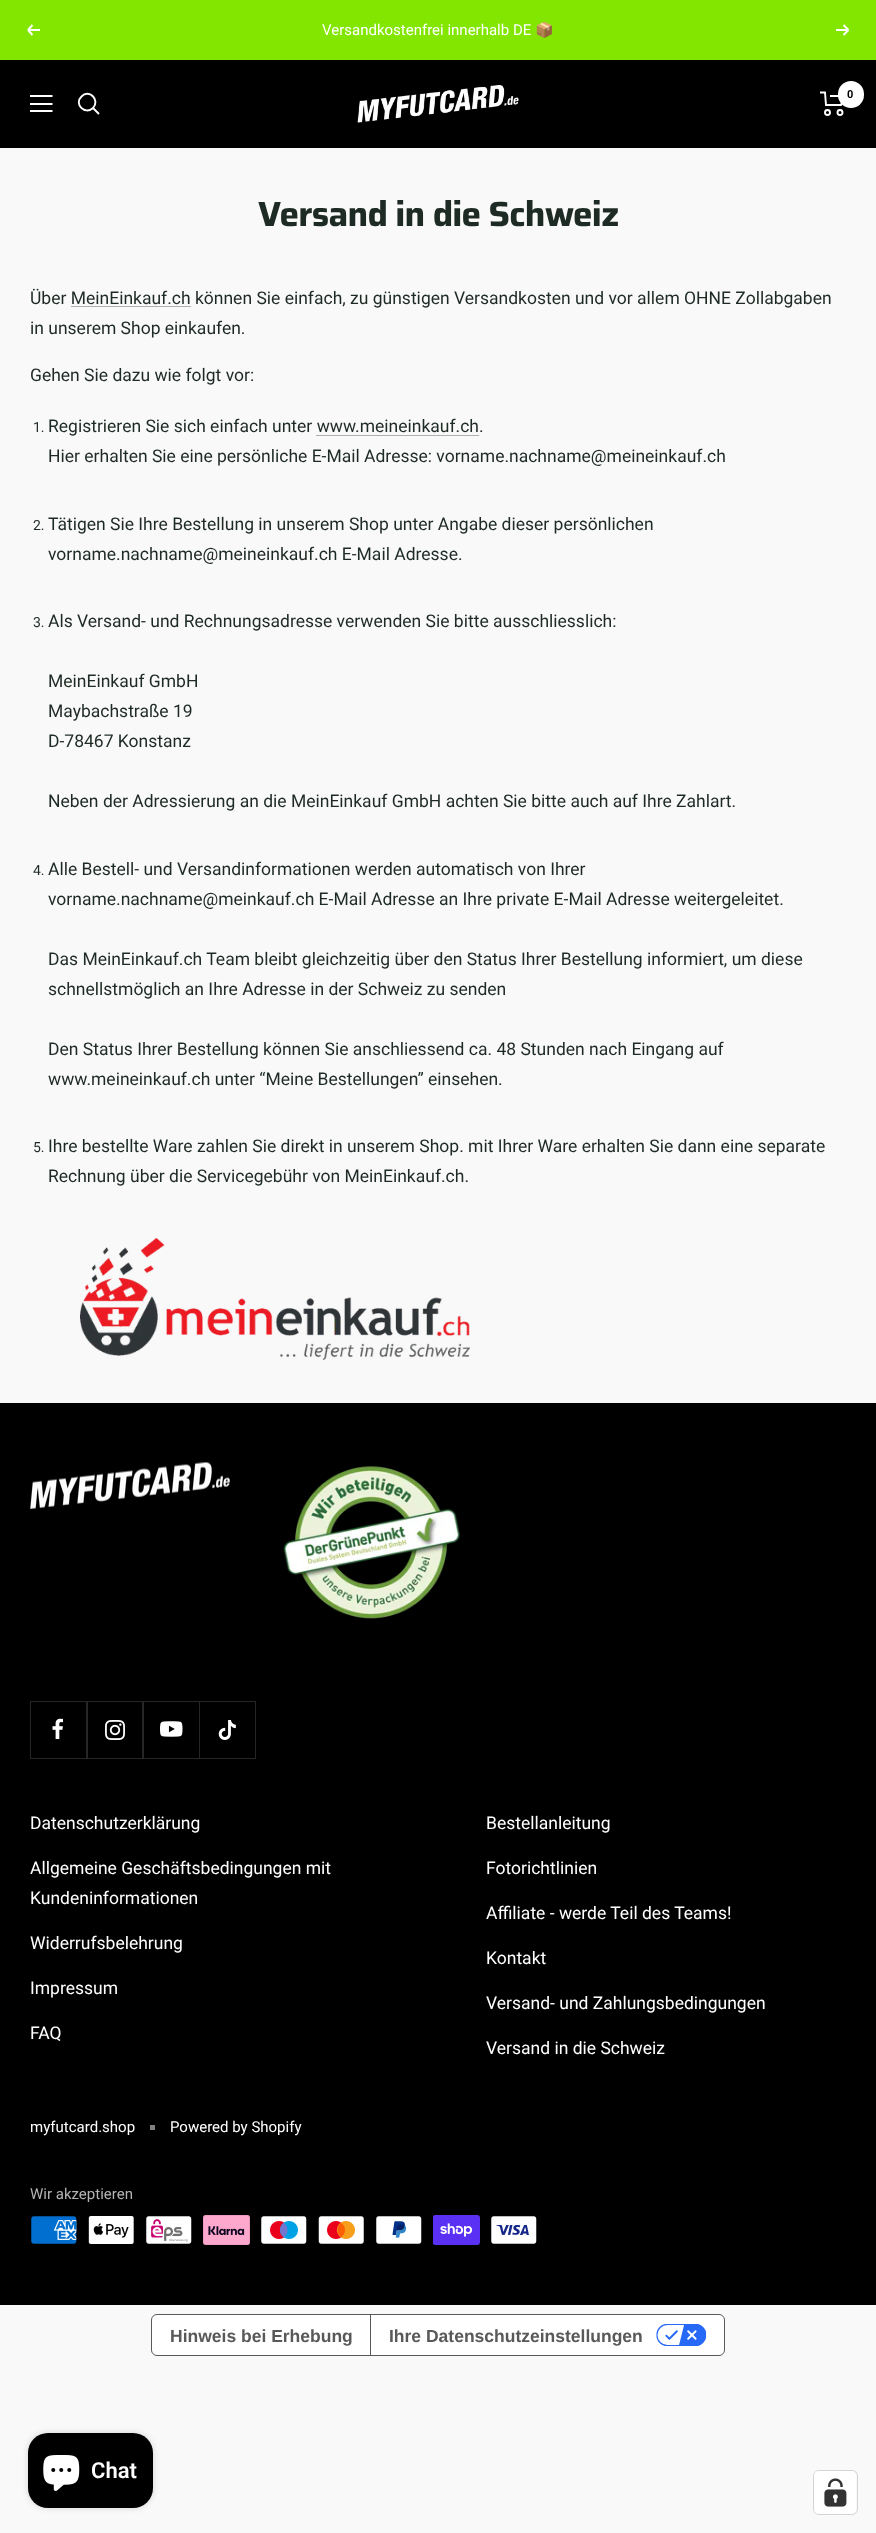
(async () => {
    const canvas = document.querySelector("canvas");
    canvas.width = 876;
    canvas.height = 2533;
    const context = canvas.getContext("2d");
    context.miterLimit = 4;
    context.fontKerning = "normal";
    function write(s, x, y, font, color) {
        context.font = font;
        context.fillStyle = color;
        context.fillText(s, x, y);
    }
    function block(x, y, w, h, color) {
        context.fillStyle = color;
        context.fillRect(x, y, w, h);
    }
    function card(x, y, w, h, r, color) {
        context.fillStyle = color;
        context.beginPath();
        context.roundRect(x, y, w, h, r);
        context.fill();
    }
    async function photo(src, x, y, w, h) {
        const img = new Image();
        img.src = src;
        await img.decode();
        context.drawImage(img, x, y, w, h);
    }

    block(0, 0, 876, 2533, "rgb(249, 249, 249)");
    block(0, 0, 876, 60, "rgb(130, 230, 0)");
    context.beginPath();
    context.moveTo(40, 30);
    context.lineTo(28, 30);
    context.moveTo(28, 30);
    context.lineTo(32.5, 35);
    context.moveTo(28, 30);
    context.lineTo(32.5, 25);
    context.strokeStyle = "rgb(255, 255, 255)";
    context.lineWidth = 1.9;
    context.stroke();
    write("Versandkostenfrei innerhalb DE", 322, 35, "15px Roboto", "rgb(255, 255, 255)");
    write("📦", 535, 35, "15px Noto Color Emoji", "rgb(255, 255, 255)");
    context.beginPath();
    context.moveTo(836, 30);
    context.lineTo(848.5, 30);
    context.moveTo(848.5, 30);
    context.lineTo(843.5, 35);
    context.moveTo(848.5, 30);
    context.lineTo(843.5, 25);
    context.stroke();
    block(0, 60, 876, 88, "rgb(0, 0, 0)");
    context.beginPath();
    context.moveTo(30, 96);
    context.lineTo(52.5, 96);
    context.moveTo(30, 111);
    context.lineTo(52.5, 111);
    context.closePath();
    context.moveTo(30, 104);
    context.lineTo(52.5, 104);
    context.closePath();
    context.stroke();
    context.beginPath();
    context.moveTo(93, 108);
    context.bezierCurveTo(100.5, 100, 89, 88.5, 81.5, 96.5);
    context.bezierCurveTo(73.5, 104, 85, 115.5, 93, 108);
    context.closePath();
    context.moveTo(93, 108);
    context.lineTo(99, 114);
    context.stroke();
    await photo("media/1.png", 357, 85, 162, 38);
    context.beginPath();
    context.moveTo(820, 92.5);
    context.lineTo(825, 92.5);
    context.lineTo(826, 105);
    context.lineTo(841, 105);
    context.lineTo(844, 96);
    context.lineTo(830, 96);
    context.stroke();
    context.beginPath();
    context.arc(827.5, 112.5, 2.5, 0, Math.PI * 2);
    context.stroke();
    context.beginPath();
    context.arc(840, 112.5, 2.5, 0, Math.PI * 2);
    context.stroke();
    card(838, 81, 26, 27, 13, "rgb(255, 255, 255)");
    write("0", 847, 98, "bold 11px Roboto", "rgb(0, 0, 0)");
    context.letterSpacing = "-0.75px";
    write("Versand in die Schweiz", 258, 226, "bold 35px Saira", "rgb(30, 42, 36)");
    context.letterSpacing = "0px";
    write("Über MeinEinkauf.ch können Sie einfach, zu günstigen Versandkosten und vor allem OHNE Zollabgaben", 30, 304, "17.5px Roboto", "rgb(30, 42, 36)");
    block(71, 306, 120, 1, "rgb(172, 177, 174)");
    write("in unserem Shop einkaufen.", 30, 334, "17.5px Roboto", "rgb(30, 42, 36)");
    write("Gehen Sie dazu wie folgt vor:", 30, 381, "17.5px Roboto", "rgb(30, 42, 36)");
    write("1.", 33, 432, "14px Roboto", "rgb(30, 42, 36)");
    write("Registrieren Sie sich einfach unter www.meineinkauf.ch.", 48, 432, "17.5px Roboto", "rgb(30, 42, 36)");
    block(316, 435, 163, 1, "rgb(172, 177, 174)");
    write("Hier erhalten Sie eine persönliche E-Mail Adresse: vorname.nachname@meineinkauf.ch", 48, 462, "17.5px Roboto", "rgb(30, 42, 36)");
    write("2.", 33, 530, "14px Roboto", "rgb(30, 42, 36)");
    write("Tätigen Sie Ihre Bestellung in unserem Shop unter Angabe dieser persönlichen", 48, 530, "17.5px Roboto", "rgb(30, 42, 36)");
    write("vorname.nachname@meineinkauf.ch E-Mail Adresse.", 48, 560, "17.5px Roboto", "rgb(30, 42, 36)");
    write("3.", 33, 627, "14px Roboto", "rgb(30, 42, 36)");
    write("Als Versand- und Rechnungsadresse verwenden Sie bitte ausschliesslich:", 48, 627, "17.5px Roboto", "rgb(30, 42, 36)");
    write("MeinEinkauf GmbH", 48, 687, "17.5px Roboto", "rgb(30, 42, 36)");
    write("Maybachstraße 19", 48, 717, "17.5px Roboto", "rgb(30, 42, 36)");
    write("D-78467 Konstanz", 48, 747, "17.5px Roboto", "rgb(30, 42, 36)");
    write("Neben der Adressierung an die MeinEinkauf GmbH achten Sie bitte auch auf Ihre Zahlart.", 48, 807, "17.5px Roboto", "rgb(30, 42, 36)");
    write("4.", 33, 875, "14px Roboto", "rgb(30, 42, 36)");
    write("Alle Bestell- und Versandinformationen werden automatisch von Ihrer", 48, 875, "17.5px Roboto", "rgb(30, 42, 36)");
    write("vorname.nachname@meinkauf.ch E-Mail Adresse an Ihre private E-Mail Adresse weitergeleitet.", 48, 905, "17.5px Roboto", "rgb(30, 42, 36)");
    write("Das MeinEinkauf.ch Team bleibt gleichzeitig über den Status Ihrer Bestellung informiert, um diese", 48, 965, "17.5px Roboto", "rgb(30, 42, 36)");
    write("schnellstmöglich an Ihre Adresse in der Schweiz zu senden", 48, 995, "17.5px Roboto", "rgb(30, 42, 36)");
    write("Den Status Ihrer Bestellung können Sie anschliessend ca. 48 Stunden nach Eingang auf", 48, 1055, "17.5px Roboto", "rgb(30, 42, 36)");
    write("www.meineinkauf.ch unter “Meine Bestellungen” einsehen.", 48, 1085, "17.5px Roboto", "rgb(30, 42, 36)");
    write("5.", 33, 1152, "14px Roboto", "rgb(30, 42, 36)");
    write("Ihre bestellte Ware zahlen Sie direkt in unserem Shop. mit Ihrer Ware erhalten Sie dann eine separate", 48, 1152, "17.5px Roboto", "rgb(30, 42, 36)");
    write("Rechnung über die Servicegebühr von MeinEinkauf.ch.", 48, 1182, "17.5px Roboto", "rgb(30, 42, 36)");
    await photo("media/2.png", 80, 1237, 390, 123);
    block(0, 1403, 876, 902, "rgb(0, 0, 0)");
    await photo("media/3.png", 30, 1462, 200, 47);
    await photo("media/4.png", 283, 1466, 177, 153);
    context.fillStyle = "rgb(38, 38, 38)";
    context.beginPath();
    context.moveTo(31, 1758);
    context.lineTo(31, 1759);
    context.lineTo(88, 1759);
    context.lineTo(88, 1703);
    context.lineTo(86, 1703);
    context.lineTo(86, 1758);
    context.closePath();
    context.fill();
    block(30, 1758, 1, 1, "rgb(38, 38, 38)");
    context.beginPath();
    context.moveTo(31, 1701);
    context.lineTo(86, 1701);
    context.lineTo(86, 1758);
    context.lineTo(31, 1758);
    context.lineTo(88, 1758);
    context.lineTo(88, 1701);
    context.closePath();
    context.fill();
    block(30, 1701, 56, 1, "rgb(38, 38, 38)");
    block(30, 1701, 1, 57, "rgb(38, 38, 38)");
    await photo("media/5.png", 52, 1718, 11, 21);
    context.beginPath();
    context.moveTo(88, 1758);
    context.lineTo(88, 1759);
    context.lineTo(144, 1759);
    context.lineTo(144, 1703);
    context.lineTo(142, 1703);
    context.lineTo(142, 1758);
    context.closePath();
    context.fill();
    context.beginPath();
    context.moveTo(88, 1701);
    context.lineTo(142, 1701);
    context.lineTo(142, 1758);
    context.lineTo(88, 1758);
    context.lineTo(144, 1758);
    context.lineTo(144, 1701);
    context.closePath();
    context.fill();
    block(86, 1701, 113, 1, "rgb(38, 38, 38)");
    await photo("media/6.png", 105, 1720, 20, 20);
    context.beginPath();
    context.moveTo(144, 1758);
    context.lineTo(144, 1759);
    context.lineTo(200, 1759);
    context.lineTo(200, 1703);
    context.lineTo(199, 1703);
    context.lineTo(199, 1758);
    context.closePath();
    context.fill();
    context.beginPath();
    context.moveTo(144, 1701);
    context.lineTo(199, 1701);
    context.lineTo(199, 1758);
    context.lineTo(144, 1758);
    context.lineTo(200, 1758);
    context.lineTo(200, 1701);
    context.closePath();
    context.fill();
    await photo("media/7.png", 160, 1721, 23, 16);
    context.beginPath();
    context.moveTo(200, 1758);
    context.lineTo(200, 1759);
    context.lineTo(256, 1759);
    context.lineTo(256, 1703);
    context.lineTo(255, 1703);
    context.lineTo(255, 1758);
    context.closePath();
    context.fill();
    context.beginPath();
    context.moveTo(200, 1701);
    context.lineTo(255, 1701);
    context.lineTo(255, 1758);
    context.lineTo(200, 1758);
    context.lineTo(256, 1758);
    context.lineTo(256, 1701);
    context.closePath();
    context.fill();
    block(199, 1701, 56, 1, "rgb(38, 38, 38)");
    await photo("media/8.png", 218, 1720, 18, 20);
    write("Datenschutzerklärung", 30, 1829, "17.5px Roboto", "rgb(255, 255, 255)");
    write("Allgemeine Geschäftsbedingungen mit", 30, 1874, "17.5px Roboto", "rgb(255, 255, 255)");
    write("Kundeninformationen", 30, 1904, "17.5px Roboto", "rgb(255, 255, 255)");
    write("Widerrufsbelehrung", 30, 1949, "17.5px Roboto", "rgb(255, 255, 255)");
    write("Impressum", 30, 1994, "17.5px Roboto", "rgb(255, 255, 255)");
    write("FAQ", 30, 2039, "17.5px Roboto", "rgb(255, 255, 255)");
    write("Bestellanleitung", 486, 1829, "17.5px Roboto", "rgb(255, 255, 255)");
    write("Fotorichtlinien", 486, 1874, "17.5px Roboto", "rgb(255, 255, 255)");
    write("Affiliate - werde Teil des Teams!", 486, 1919, "17.5px Roboto", "rgb(255, 255, 255)");
    write("Kontakt", 486, 1964, "17.5px Roboto", "rgb(255, 255, 255)");
    write("Versand- und Zahlungsbedingungen", 486, 2009, "17.5px Roboto", "rgb(255, 255, 255)");
    write("Versand in die Schweiz", 486, 2054, "17.5px Roboto", "rgb(255, 255, 255)");
    write("myfutcard.shop", 30, 2132, "15px Roboto", "rgb(255, 255, 255)");
    block(150, 2125, 5, 5, "rgb(128, 128, 128)");
    write("Powered by Shopify", 170, 2132, "15px Roboto", "rgb(255, 255, 255)");
    write("Wir akzeptieren", 30, 2199, "15px Roboto", "rgb(179, 179, 179)");
    await photo("media/9.png", 31, 2216, 46, 28);
    await photo("media/10.png", 88, 2216, 46, 28);
    await photo("media/11.png", 146, 2216, 46, 28);
    await photo("media/12.png", 203, 2215, 47, 30);
    await photo("media/13.png", 261, 2216, 46, 28);
    await photo("media/14.png", 318, 2216, 46, 28);
    await photo("media/15.png", 376, 2216, 46, 28);
    await photo("media/16.png", 433, 2215, 47, 30);
    await photo("media/17.png", 491, 2216, 46, 28);
    context.fillStyle = "rgb(255, 255, 255)";
    context.beginPath();
    context.roundRect(151.5, 2314.5, 573, 41, 5.5);
    context.fill();
    context.strokeStyle = "rgb(89, 89, 89)";
    context.lineWidth = 1;
    context.stroke();
    write("Hinweis bei Erhebung", 170, 2342, "bold 17.5px Liberation Sans", "rgb(89, 89, 89)");
    block(370, 2315, 1, 40, "rgb(89, 89, 89)");
    write("Ihre Datenschutzeinstellungen", 389, 2342, "bold 17.5px Liberation Sans", "rgb(89, 89, 89)");
    await photo("media/18.png", 656, 2324, 50, 22);
    context.fillStyle = "rgba(0, 0, 0, 0.15)";
    context.filter = "blur(3px)";
    context.beginPath();
    context.roundRect(28, 2433, 125, 75, 20);
    context.fill();
    context.filter = "none";
    card(28, 2433, 125, 75, 20, "rgb(0, 0, 0)");
    await photo("media/19.png", 43, 2455, 37, 36);
    write("Chat", 91, 2478, "600 22px Roboto", "rgb(255, 255, 255)");
    context.beginPath();
    context.roundRect(813.5, 2470.5, 44, 44, 5.5);
    context.strokeStyle = "rgb(212, 212, 212)";
    context.stroke();
    card(814, 2471, 42, 43, 5, "rgb(255, 255, 255)");
    await photo("media/20.png", 824, 2478, 23, 29);
})();
